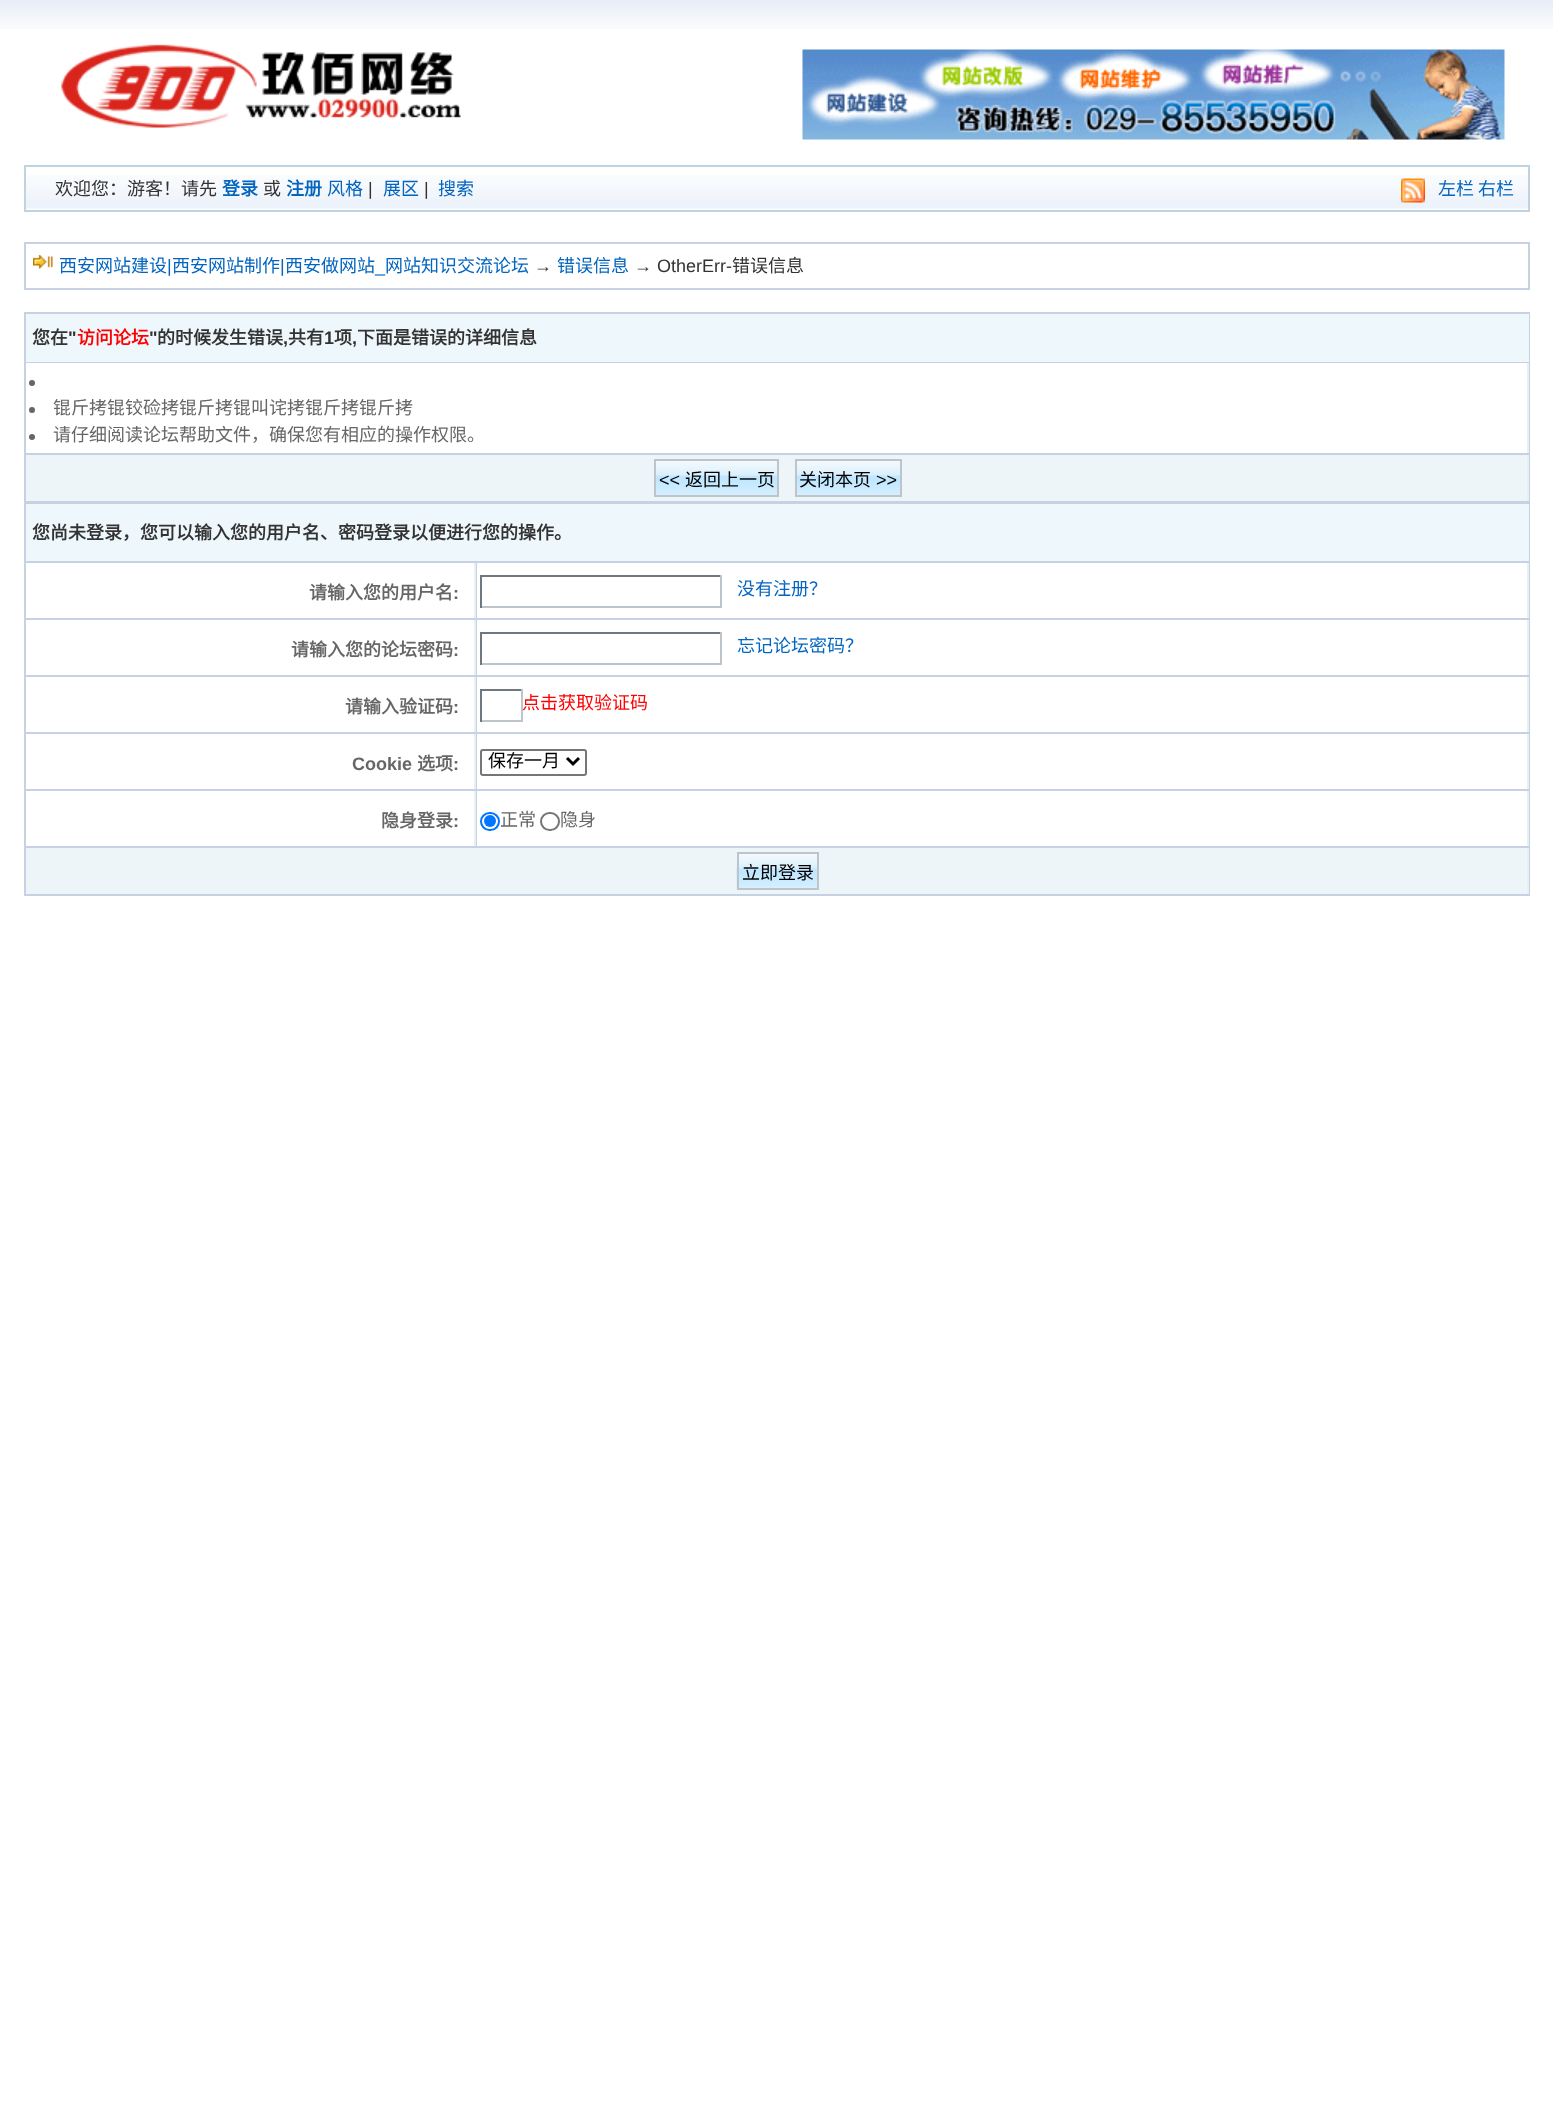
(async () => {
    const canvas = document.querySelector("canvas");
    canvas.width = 1553;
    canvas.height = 2125;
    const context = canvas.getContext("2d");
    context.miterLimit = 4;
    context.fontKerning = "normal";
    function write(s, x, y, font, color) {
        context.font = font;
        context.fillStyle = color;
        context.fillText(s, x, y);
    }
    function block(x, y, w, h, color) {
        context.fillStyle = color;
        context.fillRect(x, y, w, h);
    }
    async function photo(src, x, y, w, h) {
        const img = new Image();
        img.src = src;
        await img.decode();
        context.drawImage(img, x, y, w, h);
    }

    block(0, 0, 1553, 2125, "rgb(255, 255, 255)");
    await photo("media/1.png", 0, 0, 1553, 29);
    await photo("media/2.png", 60, 44, 401, 85);
    await photo("media/3.png", 802, 49, 703, 91);
    await photo("media/4.png", 26, 175, 1502, 34);
    context.strokeStyle = "rgb(192, 211, 222)";
    context.lineWidth = 2;
    context.strokeRect(25, 166, 1504, 45);
    write("欢迎您：游客！请先", 55, 195, "18px Noto Sans CJK SC", "rgb(51, 51, 51)");
    write("登录", 222, 195, "bold 18px Noto Sans CJK SC", "rgb(3, 101, 191)");
    write("或", 263, 195, "18px Noto Sans CJK SC", "rgb(51, 51, 51)");
    write("注册", 286, 195, "bold 18px Noto Sans CJK SC", "rgb(3, 101, 191)");
    write("风格", 327, 195, "18px Noto Sans CJK SC", "rgb(3, 101, 191)");
    write("|", 368, 195, "18px Liberation Sans", "rgb(51, 51, 51)");
    write("展区", 383, 195, "18px Noto Sans CJK SC", "rgb(3, 101, 191)");
    write("|", 424, 195, "18px Liberation Sans", "rgb(51, 51, 51)");
    write("搜索", 438, 195, "18px Noto Sans CJK SC", "rgb(3, 101, 191)");
    await photo("media/5.png", 1401, 178, 24, 25);
    write("左栏", 1438, 195, "18px Noto Sans CJK SC", "rgb(3, 101, 191)");
    write("右栏", 1478, 195, "18px Noto Sans CJK SC", "rgb(3, 101, 191)");
    context.strokeStyle = "rgb(198, 210, 227)";
    context.strokeRect(25, 243, 1504, 46);
    await photo("media/6.png", 33, 255, 20, 14);
    write("西安网站建设", 59, 272, "18px Noto Sans CJK SC", "rgb(3, 101, 191)");
    write("|", 167, 272, "18px Liberation Sans", "rgb(3, 101, 191)");
    write("西安网站制作", 172, 272, "18px Noto Sans CJK SC", "rgb(3, 101, 191)");
    write("|", 280, 272, "18px Liberation Sans", "rgb(3, 101, 191)");
    write("西安做网站", 285, 272, "18px Noto Sans CJK SC", "rgb(3, 101, 191)");
    write("网站知识交流论坛", 385, 272, "18px Noto Sans CJK SC", "rgb(3, 101, 191)");
    write("→", 534, 272, "18px Liberation Sans", "rgb(51, 51, 51)");
    write("错误信息", 557, 272, "18px Noto Sans CJK SC", "rgb(3, 101, 191)");
    write("→ OtherErr-", 634, 272, "18px Liberation Sans", "rgb(51, 51, 51)");
    write("错误信息", 732, 272, "18px Noto Sans CJK SC", "rgb(51, 51, 51)");
    write("_", 375, 272, "18px Liberation Sans", "rgb(3, 101, 191)");
    block(24, 312, 1506, 584, "rgb(198, 210, 227)");
    block(26, 314, 1503, 48, "rgb(238, 247, 252)");
    write("您在", 32, 344, "bold 18px Noto Sans CJK SC", "rgb(51, 51, 51)");
    write("\"", 68, 344, "bold 18px Liberation Sans", "rgb(51, 51, 51)");
    write("访问论坛", 77, 344, "bold 18px Noto Sans CJK SC", "rgb(255, 0, 0)");
    write("\"", 149, 344, "bold 18px Liberation Sans", "rgb(51, 51, 51)");
    write("的时候发生错误", 157, 344, "bold 18px Noto Sans CJK SC", "rgb(51, 51, 51)");
    write(",", 283, 344, "bold 18px Liberation Sans", "rgb(51, 51, 51)");
    write("共有", 288, 344, "bold 18px Noto Sans CJK SC", "rgb(51, 51, 51)");
    write("1", 324, 344, "bold 18px Liberation Sans", "rgb(51, 51, 51)");
    write("项", 334, 344, "bold 18px Noto Sans CJK SC", "rgb(51, 51, 51)");
    write(",", 352, 344, "bold 18px Liberation Sans", "rgb(51, 51, 51)");
    write("下面是错误的详细信息", 357, 344, "bold 18px Noto Sans CJK SC", "rgb(51, 51, 51)");
    block(26, 363, 1501, 90, "rgb(255, 255, 255)");
    block(1527, 363, 2, 90, "rgb(231, 240, 245)");
    context.fillStyle = "rgb(102, 102, 102)";
    context.beginPath();
    context.arc(32, 383, 3, 0, Math.PI * 2);
    context.fill();
    context.beginPath();
    context.arc(32, 410, 3, 0, Math.PI * 2);
    context.fill();
    write("锟斤拷锟铰硷拷锟斤拷锟叫诧拷锟斤拷锟斤拷", 53, 414, "18px Noto Sans CJK SC", "rgb(102, 102, 102)");
    context.beginPath();
    context.arc(32, 437, 3, 0, Math.PI * 2);
    context.fill();
    write("请仔细阅读论坛帮助文件，确保您有相应的操作权限。", 53, 441, "18px Noto Sans CJK SC", "rgb(102, 102, 102)");
    block(26, 455, 1501, 46, "rgb(237, 245, 249)");
    block(1527, 455, 2, 46, "rgb(231, 240, 245)");
    await photo("media/7.png", 656, 461, 121, 34);
    context.strokeStyle = "rgb(189, 197, 202)";
    context.strokeRect(655, 460, 123, 36);
    write("<<", 659, 486, "18px Liberation Sans", "rgb(0, 0, 0)");
    write("返回上一页", 685, 486, "18px Noto Sans CJK SC", "rgb(0, 0, 0)");
    await photo("media/8.png", 797, 461, 103, 34);
    context.strokeRect(796, 460, 105, 36);
    write("关闭本页", 799, 486, "18px Noto Sans CJK SC", "rgb(0, 0, 0)");
    write(">>", 876, 486, "18px Liberation Sans", "rgb(0, 0, 0)");
    block(26, 504, 1503, 57, "rgb(238, 247, 252)");
    write("您尚未登录，您可以输入您的用户名、密码登录以便进行您的操作。", 32, 539, "bold 18px Noto Sans CJK SC", "rgb(51, 51, 51)");
    block(26, 563, 448, 55, "rgb(255, 255, 255)");
    block(474, 563, 2, 55, "rgb(231, 240, 245)");
    write("请输入您的用户名", 309, 599, "bold 18px Noto Sans CJK SC", "rgb(102, 102, 102)");
    write(":", 453, 599, "bold 18px Liberation Sans", "rgb(102, 102, 102)");
    block(477, 563, 1050, 55, "rgb(255, 255, 255)");
    block(1527, 563, 2, 55, "rgb(231, 240, 245)");
    block(480, 575, 242, 2, "rgb(111, 120, 126)");
    block(720, 575, 2, 33, "rgb(189, 197, 202)");
    block(480, 606, 242, 2, "rgb(189, 197, 202)");
    block(480, 575, 2, 33, "rgb(111, 120, 126)");
    write("没有注册？", 737, 595, "18px Noto Sans CJK SC", "rgb(3, 101, 191)");
    block(26, 620, 448, 55, "rgb(255, 255, 255)");
    block(474, 620, 2, 55, "rgb(231, 240, 245)");
    write("请输入您的论坛密码", 291, 656, "bold 18px Noto Sans CJK SC", "rgb(102, 102, 102)");
    write(":", 453, 656, "bold 18px Liberation Sans", "rgb(102, 102, 102)");
    block(477, 620, 1050, 55, "rgb(255, 255, 255)");
    block(1527, 620, 2, 55, "rgb(231, 240, 245)");
    block(480, 632, 242, 2, "rgb(111, 120, 126)");
    block(720, 632, 2, 33, "rgb(189, 197, 202)");
    block(480, 663, 242, 2, "rgb(189, 197, 202)");
    block(480, 632, 2, 33, "rgb(111, 120, 126)");
    write("忘记论坛密码？", 737, 652, "18px Noto Sans CJK SC", "rgb(3, 101, 191)");
    block(26, 677, 448, 55, "rgb(255, 255, 255)");
    block(474, 677, 2, 55, "rgb(231, 240, 245)");
    write("请输入验证码", 345, 713, "bold 18px Noto Sans CJK SC", "rgb(102, 102, 102)");
    write(":", 453, 713, "bold 18px Liberation Sans", "rgb(102, 102, 102)");
    block(477, 677, 1050, 55, "rgb(255, 255, 255)");
    block(1527, 677, 2, 55, "rgb(231, 240, 245)");
    block(480, 689, 42, 2, "rgb(111, 120, 126)");
    block(521, 689, 2, 33, "rgb(189, 197, 202)");
    block(480, 720, 42, 2, "rgb(189, 197, 202)");
    block(480, 689, 2, 33, "rgb(111, 120, 126)");
    write("点击获取验证码", 522, 709, "18px Noto Sans CJK SC", "rgb(255, 0, 0)");
    block(26, 734, 448, 55, "rgb(255, 255, 255)");
    block(474, 734, 2, 55, "rgb(231, 240, 245)");
    write("Cookie", 352, 770, "bold 18px Liberation Sans", "rgb(102, 102, 102)");
    write("选项", 417, 770, "bold 18px Noto Sans CJK SC", "rgb(102, 102, 102)");
    write(":", 453, 770, "bold 18px Liberation Sans", "rgb(102, 102, 102)");
    block(477, 734, 1050, 55, "rgb(255, 255, 255)");
    block(1527, 734, 2, 55, "rgb(231, 240, 245)");
    context.beginPath();
    context.roundRect(481, 750, 105, 25, 2);
    context.strokeStyle = "rgb(118, 118, 118)";
    context.stroke();
    context.beginPath();
    context.moveTo(567, 758);
    context.lineTo(573, 764);
    context.lineTo(579, 758);
    context.strokeStyle = "rgb(0, 0, 0)";
    context.lineWidth = 3;
    context.stroke();
    write("保存一月", 488, 767, "18px Noto Sans CJK SC", "rgb(0, 0, 0)");
    block(26, 791, 448, 55, "rgb(255, 255, 255)");
    block(474, 791, 2, 55, "rgb(231, 240, 245)");
    write("隐身登录", 381, 827, "bold 18px Noto Sans CJK SC", "rgb(102, 102, 102)");
    write(":", 453, 827, "bold 18px Liberation Sans", "rgb(102, 102, 102)");
    block(477, 791, 1050, 55, "rgb(255, 255, 255)");
    block(1527, 791, 2, 55, "rgb(231, 240, 245)");
    context.beginPath();
    context.roundRect(481, 813, 18, 17, 8.5);
    context.strokeStyle = "rgb(0, 117, 255)";
    context.lineWidth = 2;
    context.stroke();
    context.fillStyle = "rgb(0, 117, 255)";
    context.beginPath();
    context.arc(490, 821, 6, 0, Math.PI * 2);
    context.fill();
    write("正常", 500, 826, "18px Noto Sans CJK SC", "rgb(102, 102, 102)");
    context.beginPath();
    context.roundRect(541, 813, 18, 17, 8.5);
    context.strokeStyle = "rgb(118, 118, 118)";
    context.stroke();
    write("隐身", 560, 826, "18px Noto Sans CJK SC", "rgb(102, 102, 102)");
    block(26, 848, 1501, 46, "rgb(237, 245, 249)");
    block(1527, 848, 2, 46, "rgb(231, 240, 245)");
    await photo("media/9.png", 736, 852, 81, 38);
    context.strokeStyle = "rgb(189, 197, 202)";
    context.strokeRect(738, 853, 80, 36);
    write("立即登录", 742, 879, "18px Noto Sans CJK SC", "rgb(0, 0, 0)");
})();
